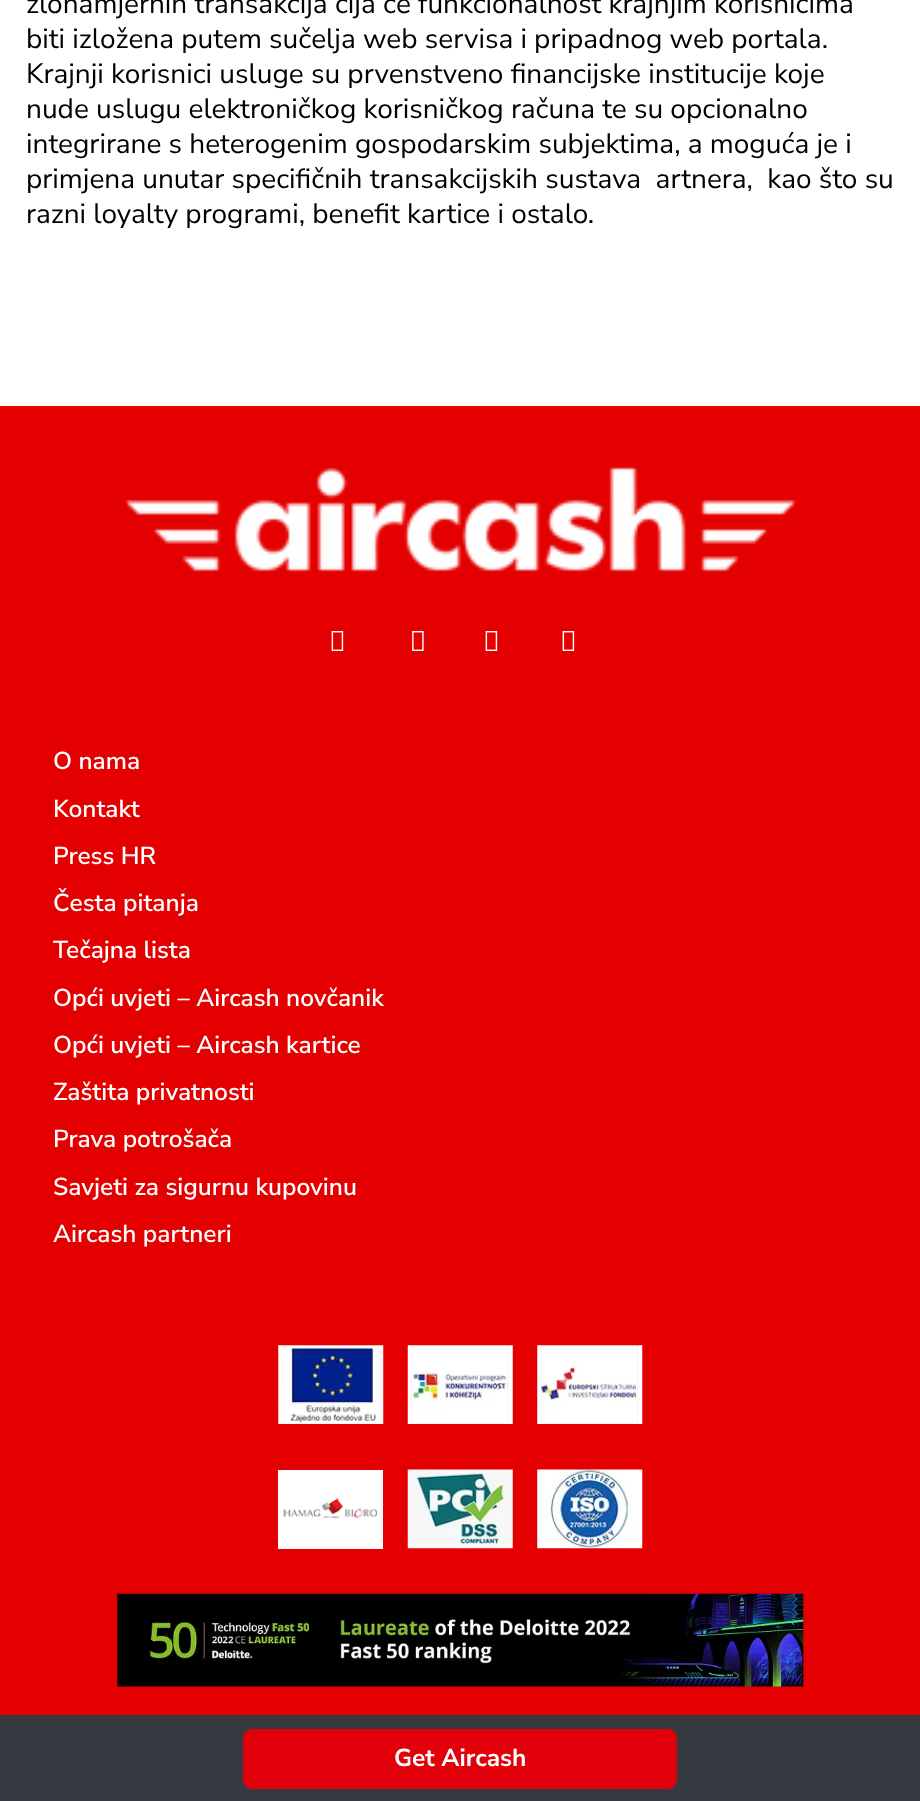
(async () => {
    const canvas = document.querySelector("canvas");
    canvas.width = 920;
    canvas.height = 1801;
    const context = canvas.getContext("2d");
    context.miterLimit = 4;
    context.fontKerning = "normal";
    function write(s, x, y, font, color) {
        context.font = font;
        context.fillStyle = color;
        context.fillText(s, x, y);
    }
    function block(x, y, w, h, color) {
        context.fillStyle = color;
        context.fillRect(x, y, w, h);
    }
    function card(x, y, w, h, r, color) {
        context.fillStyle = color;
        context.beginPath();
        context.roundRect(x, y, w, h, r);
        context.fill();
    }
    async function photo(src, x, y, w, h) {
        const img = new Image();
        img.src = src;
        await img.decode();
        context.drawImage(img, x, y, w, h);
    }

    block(0, 0, 920, 1801, "rgb(255, 255, 255)");
    write("zlonamjernih transakcija čija će funkcionalnost krajnjim korisnicima", 26, 13, "28px Nunito Sans", "rgb(0, 0, 0)");
    write("biti izložena putem sučelja web servisa i pripadnog web portala.", 26, 48, "28px Nunito Sans", "rgb(0, 0, 0)");
    write("Krajnji korisnici usluge su prvenstveno financijske institucije koje", 26, 83, "28px Nunito Sans", "rgb(0, 0, 0)");
    write("nude uslugu elektroničkog korisničkog računa te su opcionalno", 26, 118, "28px Nunito Sans", "rgb(0, 0, 0)");
    write("integrirane s heterogenim gospodarskim subjektima, a moguća je i", 26, 153, "28px Nunito Sans", "rgb(0, 0, 0)");
    write("primjena unutar specifičnih transakcijskih sustava  artnera,  kao što su", 26, 188, "28px Nunito Sans", "rgb(0, 0, 0)");
    write("razni loyalty programi, benefit kartice i ostalo.", 26, 223, "28px Nunito Sans", "rgb(0, 0, 0)");
    block(0, 406, 920, 1309, "rgb(228, 0, 0)");
    await photo("media/1.png", 125, 466, 671, 107);
    await photo("media/2.png", 331, 631, 13, 20);
    await photo("media/3.png", 412, 631, 12, 20);
    await photo("media/2.png", 485, 631, 13, 20);
    await photo("media/2.png", 562, 631, 13, 20);
    write("O nama", 53, 769, "600 24.5px Nunito Sans", "rgb(255, 255, 255)");
    write("Kontakt", 53, 817, "600 24.5px Nunito Sans", "rgb(255, 255, 255)");
    write("Press HR", 53, 864, "600 24.5px Nunito Sans", "rgb(255, 255, 255)");
    write("Česta pitanja", 53, 911, "600 24.5px Nunito Sans", "rgb(255, 255, 255)");
    write("Tečajna lista", 53, 958, "600 24.5px Nunito Sans", "rgb(255, 255, 255)");
    write("Opći uvjeti – Aircash novčanik", 53, 1006, "600 24.5px Nunito Sans", "rgb(255, 255, 255)");
    write("Opći uvjeti – Aircash kartice", 53, 1053, "600 24.5px Nunito Sans", "rgb(255, 255, 255)");
    write("Zaštita privatnosti", 53, 1100, "600 24.5px Nunito Sans", "rgb(255, 255, 255)");
    write("Prava potrošača", 53, 1147, "600 24.5px Nunito Sans", "rgb(255, 255, 255)");
    write("Savjeti za sigurnu kupovinu", 53, 1195, "600 24.5px Nunito Sans", "rgb(255, 255, 255)");
    write("Aircash partneri", 53, 1242, "600 24.5px Nunito Sans", "rgb(255, 255, 255)");
    await photo("media/4.png", 278, 1345, 106, 79);
    await photo("media/5.png", 407, 1345, 106, 79);
    await photo("media/6.png", 537, 1345, 106, 79);
    block(278, 1470, 105, 79, "rgb(255, 255, 255)");
    await photo("media/7.png", 407, 1469, 106, 80);
    await photo("media/8.png", 537, 1469, 106, 80);
    await photo("media/9.png", 283, 1497, 94, 22);
    await photo("media/10.png", 117, 1593, 687, 94);
    block(0, 1715, 920, 86, "rgb(52, 58, 64)");
    card(243, 1729, 434, 60, 9, "rgb(226, 0, 11)");
    write("Get Aircash", 394, 1766, "bold 24.5px Nunito Sans", "rgb(255, 255, 255)");
})();
